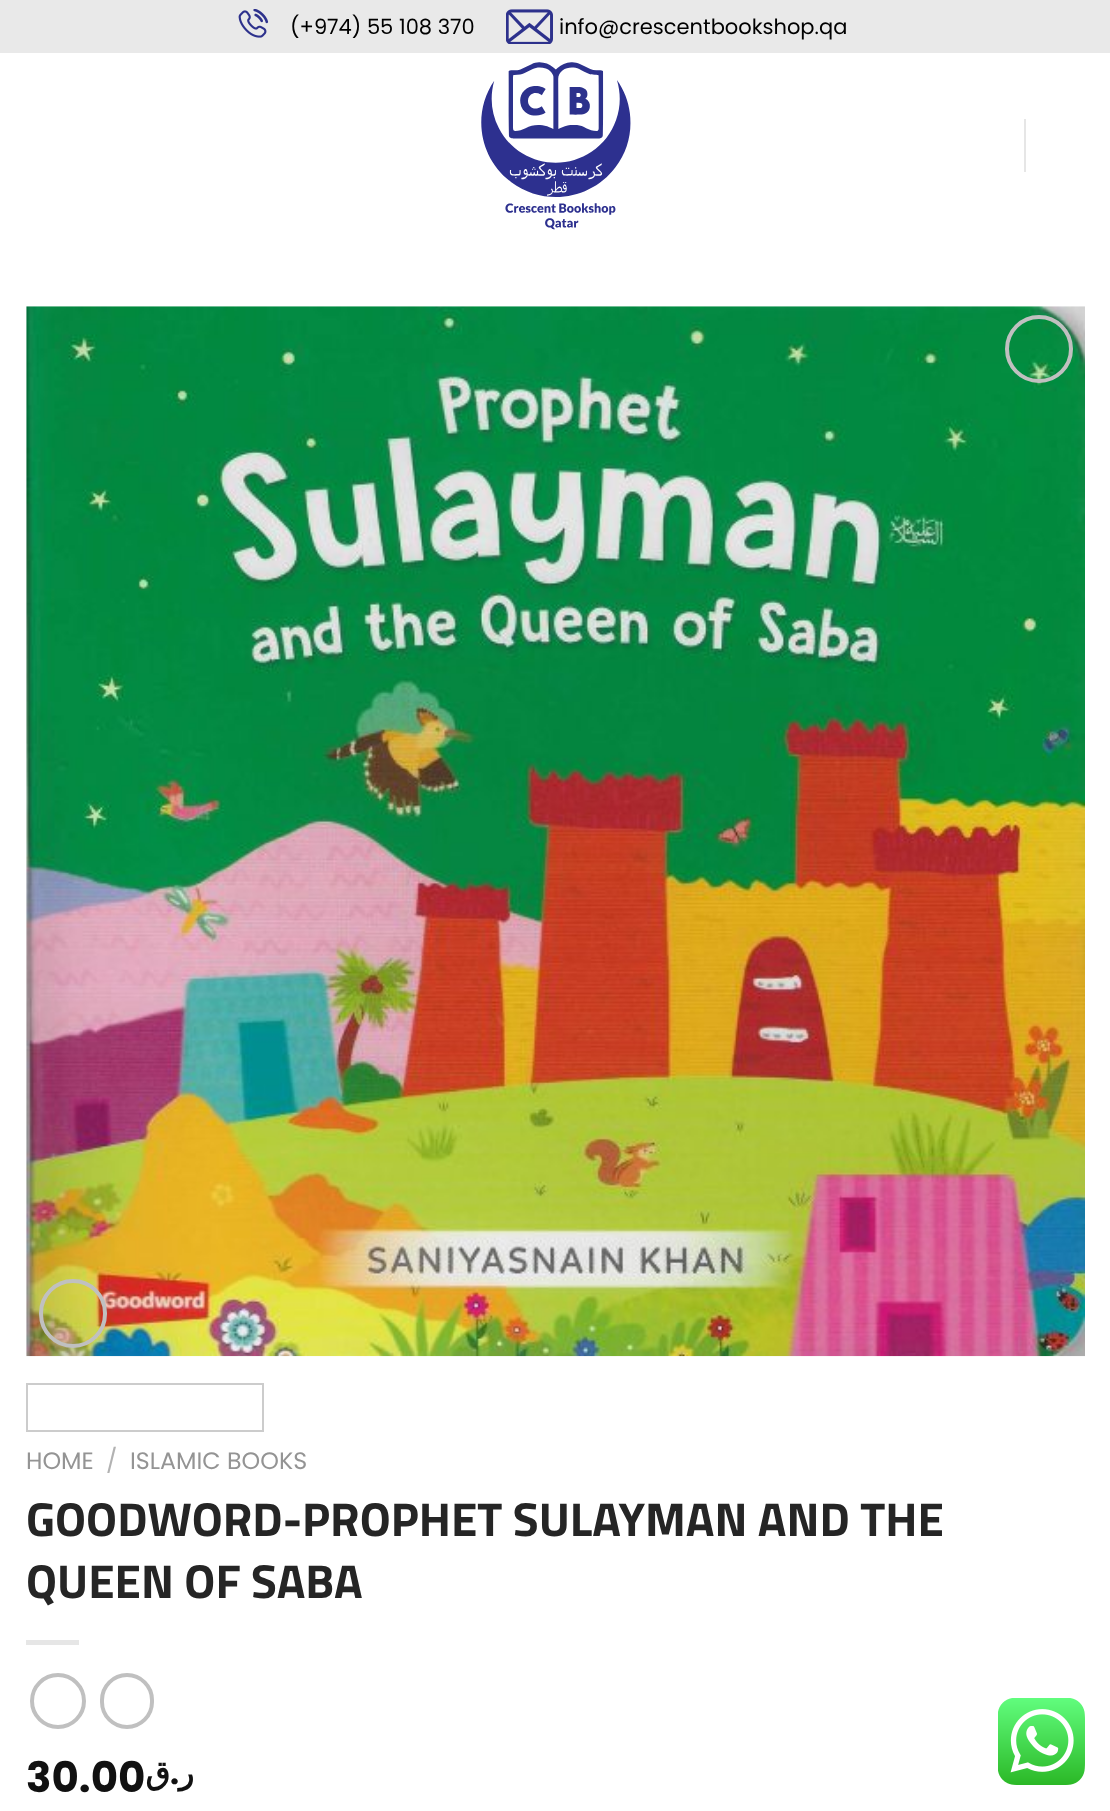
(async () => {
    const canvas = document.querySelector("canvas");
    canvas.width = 1110;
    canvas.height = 1811;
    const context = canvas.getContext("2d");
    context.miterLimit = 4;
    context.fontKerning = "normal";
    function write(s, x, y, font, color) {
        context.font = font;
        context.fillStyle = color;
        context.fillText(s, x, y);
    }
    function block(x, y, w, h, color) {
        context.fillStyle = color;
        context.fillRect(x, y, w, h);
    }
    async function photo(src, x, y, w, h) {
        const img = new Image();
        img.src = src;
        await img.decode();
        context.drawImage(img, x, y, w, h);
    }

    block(0, 0, 1110, 1811, "rgb(255, 255, 255)");
    block(0, 0, 1110, 53, "rgb(233, 233, 233)");
    await photo("media/1.png", 238, 9, 31, 29);
    write("(+974) 55 108 370", 290, 34, "21px Poppins", "rgb(0, 0, 0)");
    await photo("media/2.png", 506, 9, 47, 35);
    write("info@crescentbookshop.qa", 559, 34, "21px Poppins", "rgb(0, 0, 0)");
    await photo("media/3.png", 481, 62, 150, 168);
    block(1024, 119, 2, 53, "rgb(230, 230, 230)");
    await photo("media/4.png", 26, 306, 1059, 1051);
    context.beginPath();
    context.arc(1039, 349, 32, 0, Math.PI * 2);
    context.strokeStyle = "rgb(192, 192, 192)";
    context.lineWidth = 4;
    context.stroke();
    context.beginPath();
    context.roundRect(41, 1281, 64, 65, 32);
    context.stroke();
    context.strokeStyle = "rgb(204, 204, 204)";
    context.lineWidth = 2;
    context.strokeRect(27, 1384, 236, 47);
    write("HOME", 26, 1469, "23.75px Poppins", "rgb(148, 148, 148)");
    write("/", 106, 1469, "23.75px Poppins", "rgb(178, 178, 178)");
    write("ISLAMIC BOOKS", 130, 1469, "23.75px Poppins", "rgb(148, 148, 148)");
    write("GOODWORD-PROPHET SULAYMAN AND THE", 26, 1536, "bold 47.6px Titillium Web", "rgb(37, 37, 37)");
    write("QUEEN OF SABA", 26, 1598, "bold 47.6px Titillium Web", "rgb(37, 37, 37)");
    block(26, 1640, 53, 5, "rgb(230, 230, 230)");
    context.beginPath();
    context.arc(58, 1701, 26, 0, Math.PI * 2);
    context.strokeStyle = "rgb(192, 192, 192)";
    context.lineWidth = 4;
    context.stroke();
    context.beginPath();
    context.roundRect(102, 1675, 50, 52, 25);
    context.stroke();
    write("30.00", 26, 1792, "bold 42px Poppins", "rgb(17, 17, 17)");
    context.direction = "rtl";
    write("ق", 170, 1784, "bold 32px DejaVu Sans", "rgb(17, 17, 17)");
    write(".", 179, 1784, "bold 32px Poppins", "rgb(17, 17, 17)");
    write("ر", 194, 1784, "bold 32px DejaVu Sans", "rgb(17, 17, 17)");
    await photo("media/5.png", 998, 1698, 87, 87);
})();
